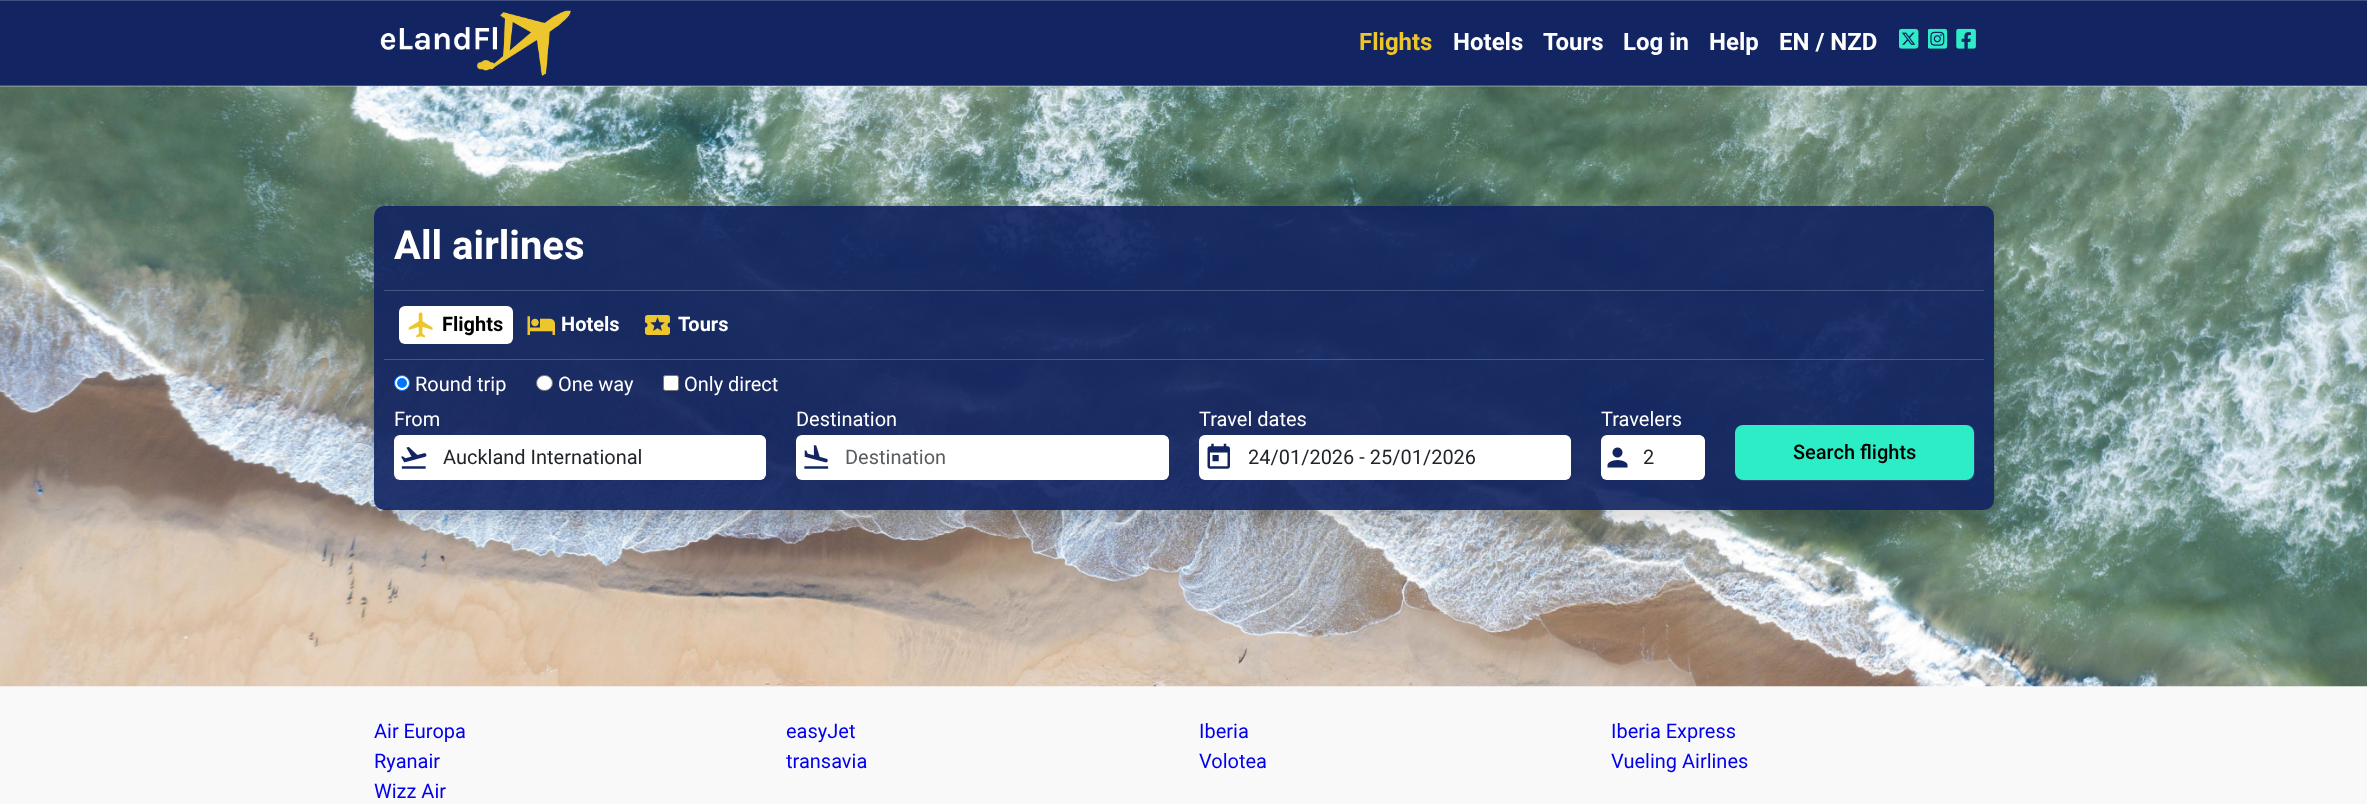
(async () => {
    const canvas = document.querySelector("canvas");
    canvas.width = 2367;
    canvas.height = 804;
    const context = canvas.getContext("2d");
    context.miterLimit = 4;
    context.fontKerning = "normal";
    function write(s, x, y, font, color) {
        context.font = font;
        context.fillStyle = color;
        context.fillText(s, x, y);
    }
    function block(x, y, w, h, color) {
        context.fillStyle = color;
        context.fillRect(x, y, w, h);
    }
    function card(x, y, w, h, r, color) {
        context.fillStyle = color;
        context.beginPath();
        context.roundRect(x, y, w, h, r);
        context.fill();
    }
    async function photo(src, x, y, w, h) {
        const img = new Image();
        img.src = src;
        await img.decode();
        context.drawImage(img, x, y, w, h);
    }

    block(0, 0, 2367, 804, "rgb(249, 249, 249)");
    block(0, 1, 2367, 84, "rgb(18, 37, 98)");
    block(0, 0, 2367, 1, "rgb(65, 81, 129)");
    block(0, 85, 2367, 1, "rgb(65, 81, 129)");
    await photo("media/1.png", 380, 10, 191, 66);
    write("Flights", 1359, 50, "bold 24px Roboto", "rgb(237, 198, 45)");
    write("Hotels", 1453, 50, "bold 24px Roboto", "rgb(255, 255, 255)");
    write("Tours", 1543, 50, "bold 24px Roboto", "rgb(255, 255, 255)");
    write("Log in", 1623, 50, "bold 24px Roboto", "rgb(255, 255, 255)");
    write("Help", 1709, 50, "bold 24px Roboto", "rgb(255, 255, 255)");
    write("EN / NZD", 1779, 50, "bold 24px Roboto", "rgb(255, 255, 255)");
    await photo("media/2.png", 1899, 28, 20, 21);
    await photo("media/3.png", 1928, 28, 20, 21);
    await photo("media/4.png", 1956, 28, 20, 21);
    await photo("media/5.png", 0, 86, 2367, 601);
    context.save();
    context.beginPath();
    context.moveTo(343, 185);
    context.lineTo(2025, 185);
    context.lineTo(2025, 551);
    context.lineTo(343, 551);
    context.closePath();
    context.moveTo(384, 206);
    context.lineTo(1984, 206);
    context.bezierCurveTo(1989.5, 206, 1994, 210.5, 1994, 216);
    context.lineTo(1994, 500);
    context.bezierCurveTo(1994, 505.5, 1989.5, 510, 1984, 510);
    context.lineTo(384, 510);
    context.bezierCurveTo(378.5, 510, 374, 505.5, 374, 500);
    context.lineTo(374, 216);
    context.bezierCurveTo(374, 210.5, 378.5, 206, 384, 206);
    context.closePath();
    context.clip("evenodd");
    context.fillStyle = "rgba(0, 0, 0, 0.15)";
    context.filter = "blur(10px)";
    context.beginPath();
    context.roundRect(374, 216, 1620, 304, 10);
    context.fill();
    context.filter = "none";
    context.restore();
    card(374, 206, 1620, 304, 10, "rgba(18, 37, 98, 0.92)");
    write("All airlines", 394, 259, "bold 40px Roboto", "rgb(255, 255, 255)");
    block(384, 290, 1600, 1, "rgba(255, 255, 255, 0.2)");
    block(384, 359, 1600, 1, "rgba(255, 255, 255, 0.2)");
    card(399, 306, 114, 38, 6, "rgb(255, 255, 255)");
    await photo("media/6.png", 408, 312, 25, 26);
    write("Flights", 442, 331, "bold 20px Roboto", "rgb(0, 0, 0)");
    await photo("media/7.png", 527, 316, 28, 19);
    write("Hotels", 561, 331, "bold 20px Roboto", "rgb(255, 255, 255)");
    await photo("media/8.png", 645, 315, 25, 20);
    write("Tours", 678, 331, "bold 20px Roboto", "rgb(255, 255, 255)");
    context.beginPath();
    context.arc(402, 383, 7.5, 0, Math.PI * 2);
    context.fill();
    context.strokeStyle = "rgb(0, 117, 255)";
    context.stroke();
    context.fillStyle = "rgb(0, 117, 255)";
    context.beginPath();
    context.arc(402, 383, 5, 0, Math.PI * 2);
    context.fill();
    write("Round trip", 415, 391, "20px Roboto", "rgb(255, 255, 255)");
    context.beginPath();
    context.roundRect(536.5, 375.5, 16, 15, 7.5);
    context.fill();
    context.strokeStyle = "rgb(118, 118, 118)";
    context.stroke();
    write("One way", 558, 391, "20px Roboto", "rgb(255, 255, 255)");
    context.beginPath();
    context.roundRect(663.5, 375.5, 15, 15, 2);
    context.fill();
    context.stroke();
    write("Only direct", 684, 391, "20px Roboto", "rgb(255, 255, 255)");
    write("From", 394, 426, "20px Roboto", "rgb(255, 255, 255)");
    card(394, 435, 372, 45, 6, "rgb(255, 255, 255)");
    await photo("media/9.png", 401, 447, 26, 22);
    card(428, 435, 338, 45, 8, "rgb(255, 255, 255)");
    write("Auckland International", 443, 464, "20px Roboto", "rgb(33, 37, 41)");
    write("Destination", 796, 426, "20px Roboto", "rgb(255, 255, 255)");
    card(796, 435, 373, 45, 6, "rgb(255, 255, 255)");
    await photo("media/10.png", 804, 445, 25, 24);
    card(830, 435, 339, 45, 8, "rgb(255, 255, 255)");
    write("Destination", 845, 464, "20px Roboto", "rgb(89, 92, 95)");
    write("Travel dates", 1199, 426, "20px Roboto", "rgb(255, 255, 255)");
    card(1199, 435, 372, 45, 6, "rgb(255, 255, 255)");
    await photo("media/11.png", 1207, 443, 23, 26);
    card(1233, 435, 338, 45, 8, "rgb(255, 255, 255)");
    write("24/01/2026 - 25/01/2026", 1248, 464, "20px Roboto", "rgb(33, 37, 41)");
    write("Travelers", 1601, 426, "20px Roboto", "rgb(255, 255, 255)");
    card(1601, 435, 104, 45, 6, "rgb(255, 255, 255)");
    await photo("media/12.png", 1607, 447, 21, 21);
    card(1629, 435, 76, 45, 8, "rgb(255, 255, 255)");
    write("2", 1643, 464, "20px Roboto", "rgb(33, 37, 41)");
    context.fillStyle = "rgba(255, 255, 255, 0.1)";
    context.beginPath();
    context.moveTo(1739, 479);
    context.bezierCurveTo(1740, 480, 1742, 481, 1744, 481);
    context.lineTo(1967, 481);
    context.bezierCurveTo(1971, 481, 1975, 477, 1975, 473);
    context.lineTo(1975, 434);
    context.bezierCurveTo(1975, 432, 1974, 429, 1972, 428);
    context.bezierCurveTo(1973, 429, 1974, 431, 1974, 432);
    context.lineTo(1974, 472);
    context.bezierCurveTo(1974, 477, 1970, 480, 1966, 480);
    context.lineTo(1742, 480);
    context.bezierCurveTo(1741, 480, 1740, 480, 1739, 479);
    context.closePath();
    context.fill();
    card(1735, 425, 239, 55, 8, "rgb(45, 237, 198)");
    write("Search flights", 1793, 459, "500 20px Roboto", "rgb(0, 0, 0)");
    write("Air Europa", 374, 738, "20px Roboto", "rgb(0, 0, 238)");
    write("easyJet", 786, 738, "20px Roboto", "rgb(0, 0, 238)");
    write("Iberia", 1199, 738, "20px Roboto", "rgb(0, 0, 238)");
    write("Iberia Express", 1611, 738, "20px Roboto", "rgb(0, 0, 238)");
    write("Ryanair", 374, 768, "20px Roboto", "rgb(0, 0, 238)");
    write("transavia", 786, 768, "20px Roboto", "rgb(0, 0, 238)");
    write("Volotea", 1199, 768, "20px Roboto", "rgb(0, 0, 238)");
    write("Vueling Airlines", 1611, 768, "20px Roboto", "rgb(0, 0, 238)");
    write("Wizz Air", 374, 798, "20px Roboto", "rgb(0, 0, 238)");
})();
